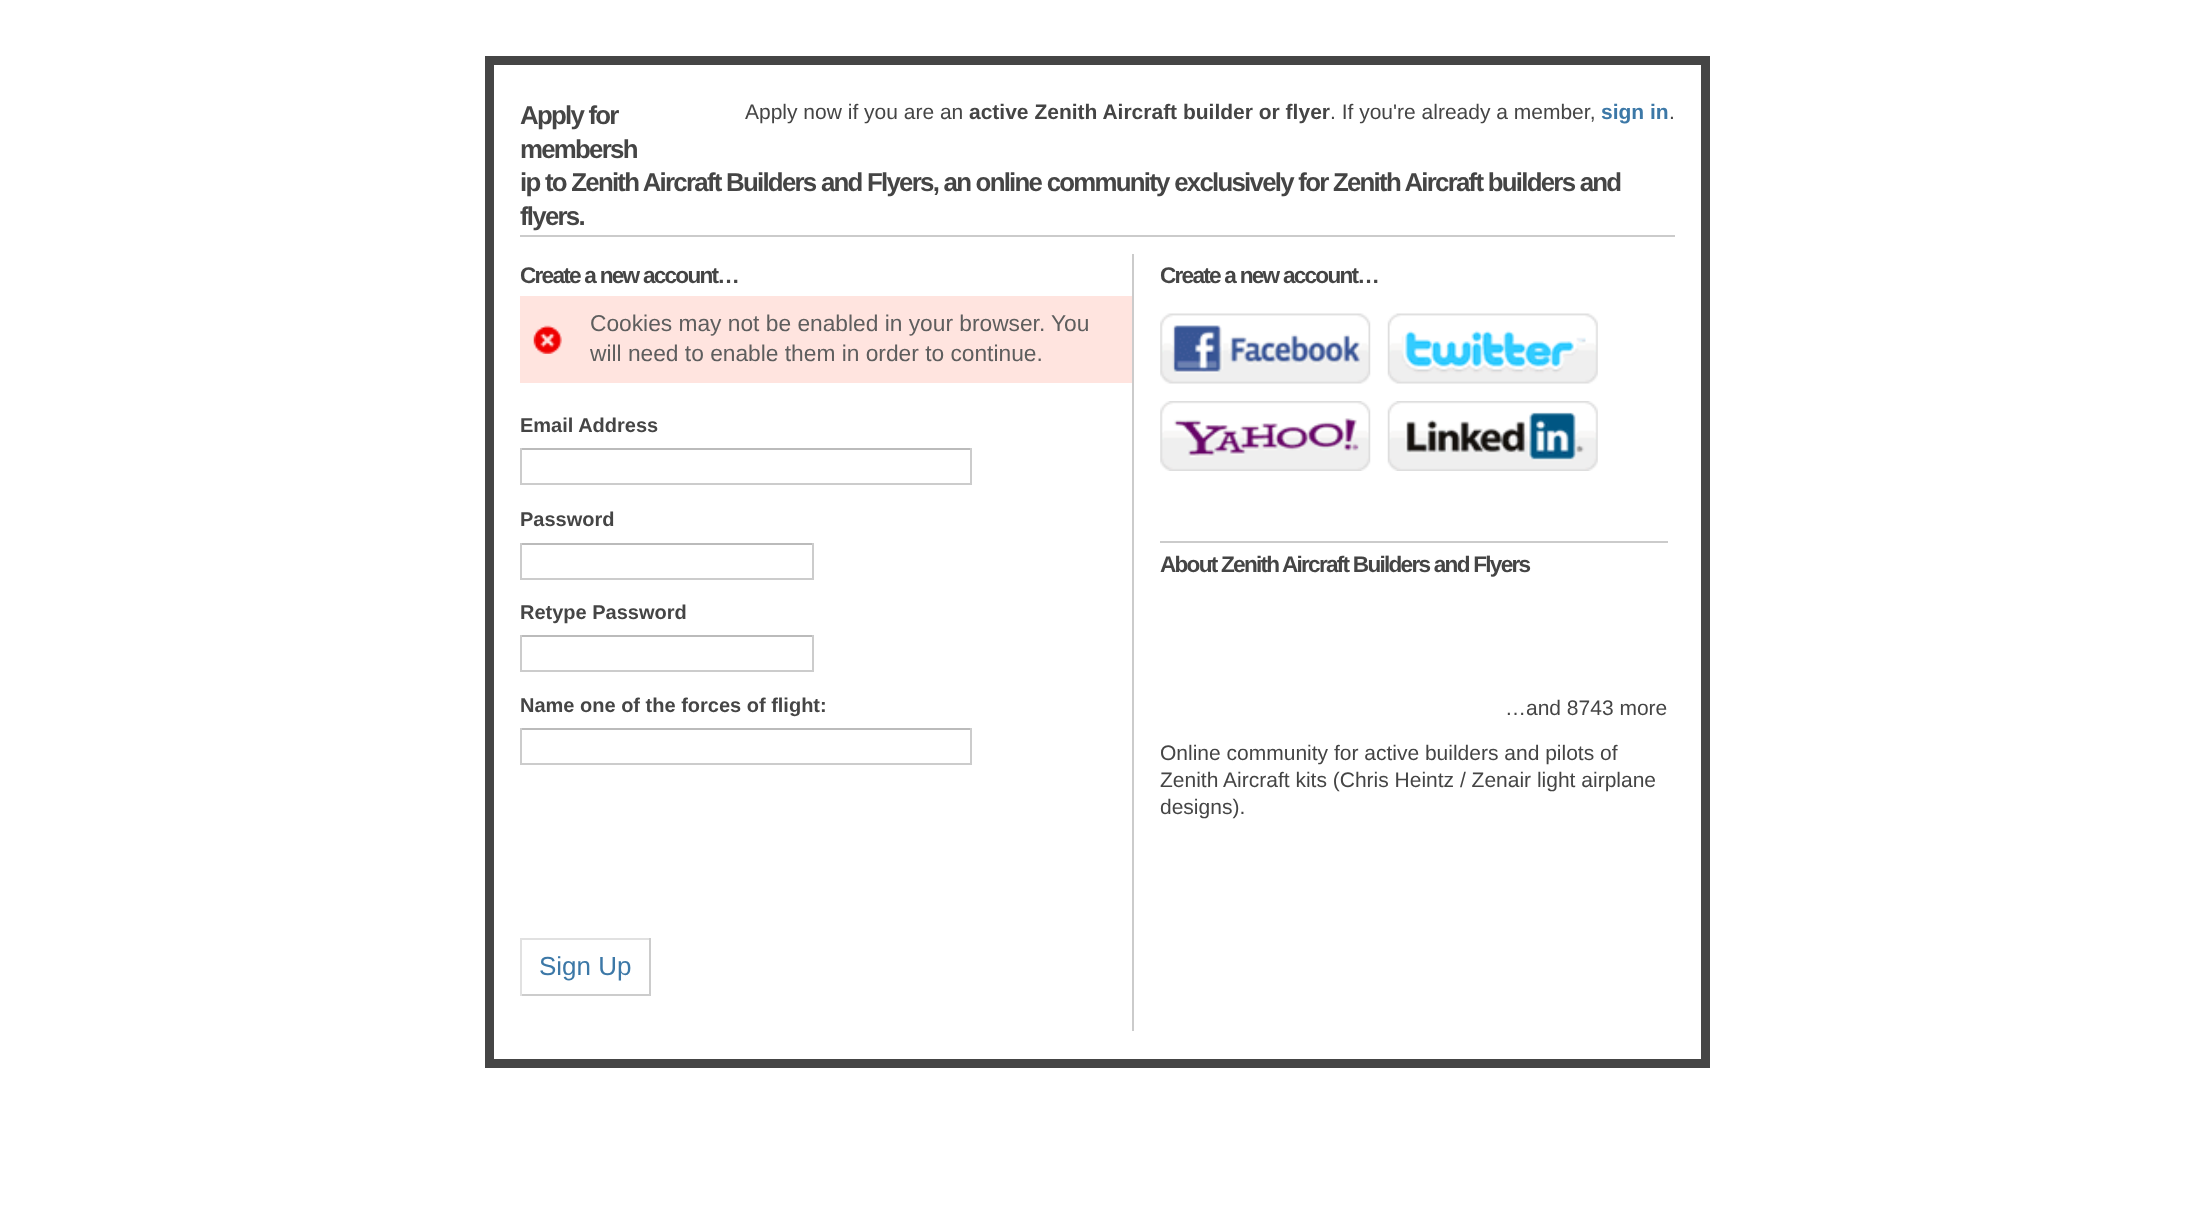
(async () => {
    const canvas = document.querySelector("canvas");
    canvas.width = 2193;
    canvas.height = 1206;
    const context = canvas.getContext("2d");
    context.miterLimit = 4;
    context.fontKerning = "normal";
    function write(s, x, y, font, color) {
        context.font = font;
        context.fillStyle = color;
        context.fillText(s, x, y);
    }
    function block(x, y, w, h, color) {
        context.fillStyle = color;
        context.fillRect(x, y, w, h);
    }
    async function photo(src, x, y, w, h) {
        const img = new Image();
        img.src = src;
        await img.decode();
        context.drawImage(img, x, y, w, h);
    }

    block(0, 0, 2193, 1206, "rgb(255, 255, 255)");
    context.strokeStyle = "rgb(69, 69, 69)";
    context.lineWidth = 9;
    context.strokeRect(489.5, 60.5, 1216, 1003);
    write("Apply now if you are an", 745, 119, "21px Liberation Sans", "rgb(69, 69, 69)");
    write("active Zenith Aircraft builder or flyer", 969, 119, "bold 21px Liberation Sans", "rgb(69, 69, 69)");
    write(". If you're already a member,", 1330, 119, "21px Liberation Sans", "rgb(69, 69, 69)");
    write("sign in", 1601, 119, "bold 21px Liberation Sans", "rgb(60, 120, 167)");
    write(".", 1669, 119, "21px Liberation Sans", "rgb(69, 69, 69)");
    block(520, 235, 1155, 2, "rgb(203, 203, 203)");
    context.letterSpacing = "-1.75px";
    write("Apply for", 520, 124, "bold 25.85px Liberation Sans", "rgb(69, 69, 69)");
    write("membersh", 520, 158, "bold 25.85px Liberation Sans", "rgb(69, 69, 69)");
    write("ip to Zenith Aircraft Builders and Flyers, an online community exclusively for Zenith Aircraft builders and", 520, 191, "bold 25.85px Liberation Sans", "rgb(69, 69, 69)");
    write("flyers.", 520, 225, "bold 25.85px Liberation Sans", "rgb(69, 69, 69)");
    block(1132, 254, 2, 777, "rgb(203, 203, 203)");
    write("Create a new account…", 520, 283, "bold 22.6px Liberation Sans", "rgb(69, 69, 69)");
    block(520, 296, 612, 87, "rgb(255, 228, 223)");
    await photo("media/1.png", 533, 325, 29, 29);
    context.letterSpacing = "0px";
    write("Cookies may not be enabled in your browser.", 590, 331, "22.75px Liberation Sans", "rgb(94, 94, 94)");
    write("You", 1051, 331, "22.75px Liberation Sans", "rgb(94, 94, 94)");
    write("will need to enable them in order to continue.", 590, 361, "22.75px Liberation Sans", "rgb(94, 94, 94)");
    write("Email Address", 520, 432, "bold 20px Liberation Sans", "rgb(69, 69, 69)");
    block(520, 448, 451, 2, "rgb(187, 187, 187)");
    block(970, 448, 2, 37, "rgb(204, 204, 204)");
    block(520, 483, 451, 2, "rgb(204, 204, 204)");
    block(520, 448, 2, 37, "rgb(204, 204, 204)");
    write("Password", 520, 526, "bold 20px Liberation Sans", "rgb(69, 69, 69)");
    block(520, 543, 294, 2, "rgb(187, 187, 187)");
    block(812, 543, 2, 36, "rgb(204, 204, 204)");
    block(520, 578, 294, 2, "rgb(204, 204, 204)");
    block(520, 543, 2, 36, "rgb(204, 204, 204)");
    write("Retype Password", 520, 619, "bold 20px Liberation Sans", "rgb(69, 69, 69)");
    block(520, 635, 294, 2, "rgb(187, 187, 187)");
    block(812, 635, 2, 37, "rgb(204, 204, 204)");
    block(520, 670, 294, 2, "rgb(204, 204, 204)");
    block(520, 635, 2, 37, "rgb(204, 204, 204)");
    write("Name one of the forces of flight:", 520, 712, "bold 20px Liberation Sans", "rgb(69, 69, 69)");
    block(520, 728, 451, 2, "rgb(187, 187, 187)");
    block(970, 728, 2, 37, "rgb(204, 204, 204)");
    block(520, 763, 451, 2, "rgb(204, 204, 204)");
    block(520, 728, 2, 37, "rgb(204, 204, 204)");
    block(520, 938, 131, 2, "rgb(225, 225, 225)");
    block(649, 938, 2, 58, "rgb(204, 204, 204)");
    block(520, 994, 131, 2, "rgb(204, 204, 204)");
    block(520, 938, 2, 58, "rgb(225, 225, 225)");
    write("Sign Up", 539, 975, "26px Liberation Sans", "rgb(60, 120, 167)");
    context.letterSpacing = "-1.75px";
    write("Create a new account…", 1160, 283, "bold 22.6px Liberation Sans", "rgb(69, 69, 69)");
    block(1160, 541, 508, 2, "rgb(203, 203, 203)");
    await photo("media/2.png", 1160, 313, 211, 71);
    await photo("media/3.png", 1387, 313, 211, 71);
    await photo("media/4.png", 1160, 401, 211, 70);
    await photo("media/5.png", 1387, 401, 211, 70);
    write("About Zenith Aircraft Builders and Flyers", 1160, 572, "bold 22.6px Liberation Sans", "rgb(69, 69, 69)");
    context.letterSpacing = "0px";
    write("…and 8743 more", 1505, 715, "21px Liberation Sans", "rgb(69, 69, 69)");
    write("Online community for active builders and pilots of", 1160, 760, "21px Liberation Sans", "rgb(69, 69, 69)");
    write("Zenith Aircraft kits (Chris Heintz / Zenair light airplane", 1160, 787, "21px Liberation Sans", "rgb(69, 69, 69)");
    write("designs).", 1160, 814, "21px Liberation Sans", "rgb(69, 69, 69)");
})();
